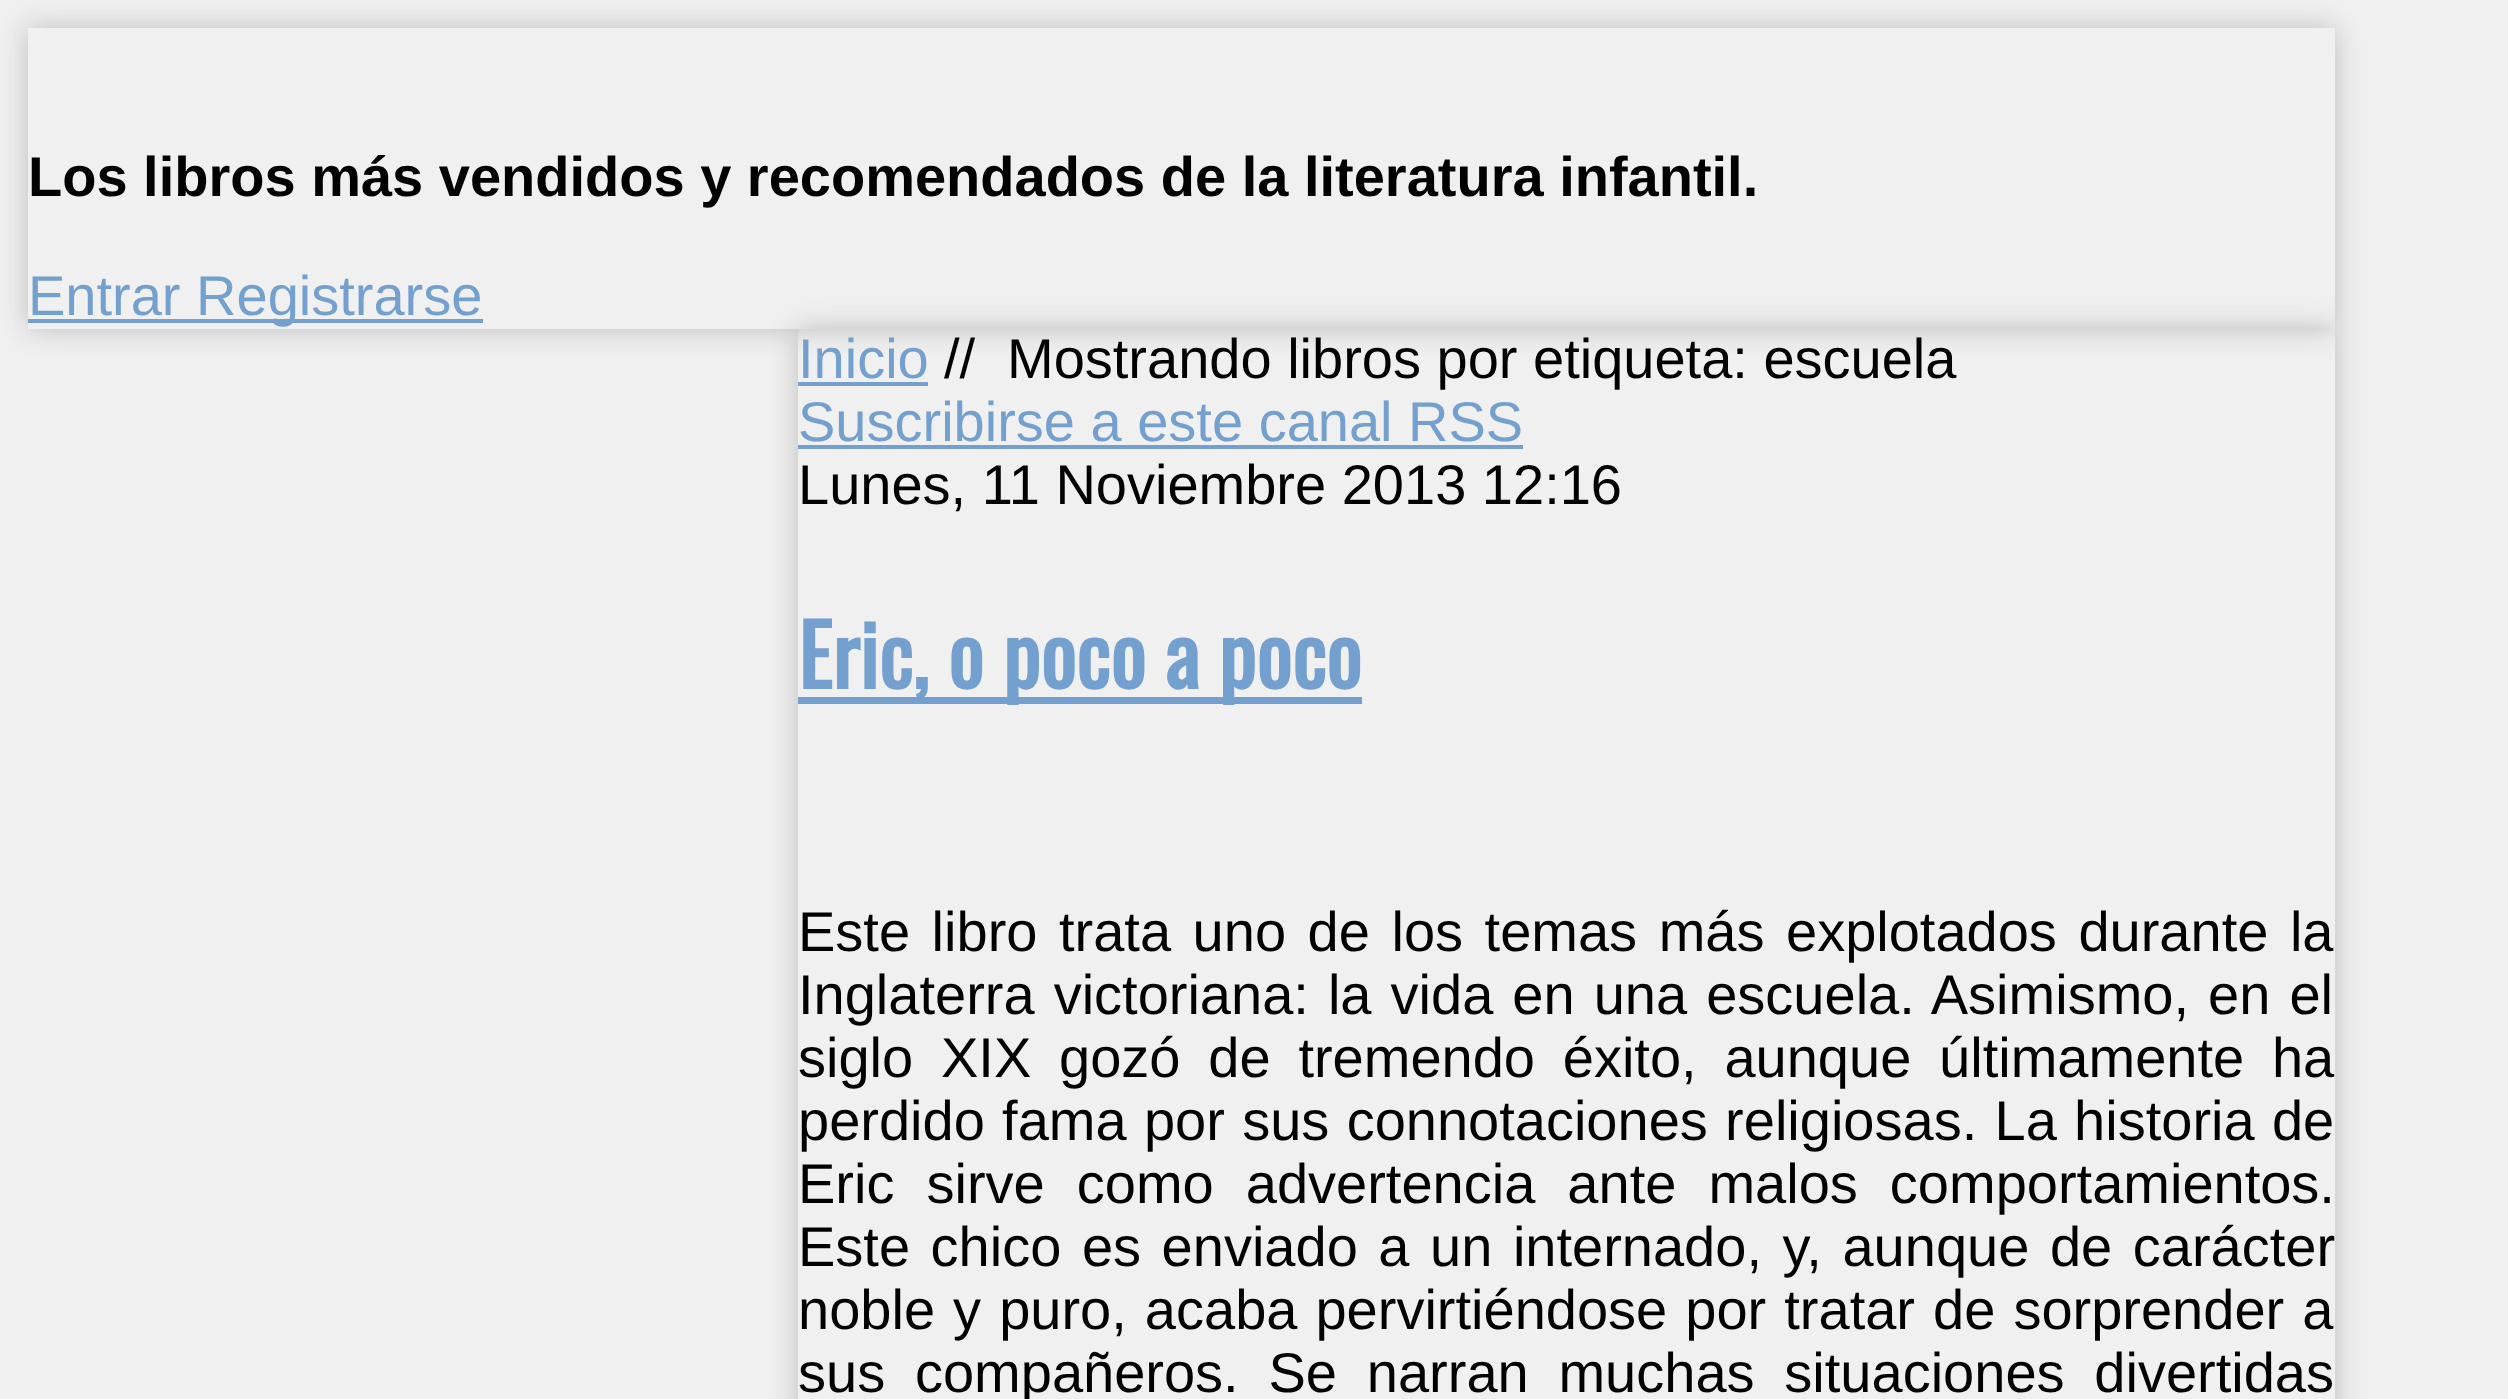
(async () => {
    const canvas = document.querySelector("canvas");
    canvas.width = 2508;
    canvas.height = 1399;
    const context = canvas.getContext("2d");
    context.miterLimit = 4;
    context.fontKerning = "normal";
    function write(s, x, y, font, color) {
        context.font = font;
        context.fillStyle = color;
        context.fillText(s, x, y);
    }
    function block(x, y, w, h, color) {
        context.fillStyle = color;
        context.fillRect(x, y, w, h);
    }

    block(0, 0, 2508, 1399, "rgb(240, 240, 240)");
    context.save();
    context.beginPath();
    context.moveTo(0, 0);
    context.lineTo(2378, 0);
    context.lineTo(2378, 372);
    context.lineTo(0, 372);
    context.closePath();
    context.moveTo(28, 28);
    context.lineTo(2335, 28);
    context.lineTo(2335, 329);
    context.lineTo(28, 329);
    context.closePath();
    context.clip("evenodd");
    context.fillStyle = "rgb(189, 189, 189)";
    context.filter = "blur(14px)";
    context.beginPath();
    context.rect(28, 28, 2307, 301);
    context.fill();
    context.filter = "none";
    context.restore();
    write("Los libros más vendidos y recomendados de la literatura infantil.", 28, 196, "bold 56px Liberation Sans", "rgb(0, 0, 0)");
    block(28, 319, 455, 4, "rgb(115, 160, 207)");
    write("Entrar Registrarse", 28, 315, "56px Liberation Sans", "rgb(115, 160, 207)");
    context.save();
    context.beginPath();
    context.moveTo(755, 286);
    context.lineTo(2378, 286);
    context.lineTo(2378, 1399);
    context.lineTo(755, 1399);
    context.closePath();
    context.moveTo(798, 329);
    context.lineTo(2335, 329);
    context.lineTo(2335, 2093);
    context.lineTo(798, 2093);
    context.closePath();
    context.clip("evenodd");
    context.fillStyle = "rgb(189, 189, 189)";
    context.filter = "blur(14px)";
    context.beginPath();
    context.rect(798, 329, 1537, 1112);
    context.fill();
    context.filter = "none";
    context.restore();
    write("Inicio", 798, 378, "56px Liberation Sans", "rgb(115, 160, 207)");
    block(798, 382, 130, 4, "rgb(115, 160, 207)");
    write("//", 944, 378, "56px Liberation Sans", "rgb(0, 0, 0)");
    write("Mostrando libros por etiqueta: escuela", 1007, 378, "56px Liberation Sans", "rgb(0, 0, 0)");
    write("Suscribirse a este canal RSS", 798, 441, "56px Liberation Sans", "rgb(115, 160, 207)");
    block(798, 445, 725, 4, "rgb(115, 160, 207)");
    write("Lunes, 11 Noviembre 2013 12:16", 798, 504, "56px Liberation Sans", "rgb(0, 0, 0)");
    block(798, 697, 564, 7, "rgb(115, 160, 207)");
    write("Eric, o poco a poco", 798, 689, "bold 84px Oswald", "rgb(115, 160, 207)");
    context.wordSpacing = "6px";
    write("Este libro trata uno de los temas más explotados durante la", 798, 951, "56px Liberation Sans", "rgb(0, 0, 0)");
    context.wordSpacing = "3.5px";
    write("Inglaterra victoriana: la vida en una escuela. Asimismo, en el", 798, 1014, "56px Liberation Sans", "rgb(0, 0, 0)");
    context.wordSpacing = "12.25px";
    write("siglo XIX gozó de tremendo éxito, aunque últimamente ha", 798, 1077, "56px Liberation Sans", "rgb(0, 0, 0)");
    context.wordSpacing = "1.75px";
    write("perdido fama por sus connotaciones religiosas. La historia de", 798, 1140, "56px Liberation Sans", "rgb(0, 0, 0)");
    context.wordSpacing = "16.5px";
    write("Eric sirve como advertencia ante malos comportamientos.", 798, 1203, "56px Liberation Sans", "rgb(0, 0, 0)");
    context.wordSpacing = "5px";
    write("Este chico es enviado a un internado, y, aunque de carácter", 798, 1266, "56px Liberation Sans", "rgb(0, 0, 0)");
    context.wordSpacing = "2.5px";
    write("noble y puro, acaba pervirtiéndose por tratar de sorprender a", 798, 1329, "56px Liberation Sans", "rgb(0, 0, 0)");
    context.wordSpacing = "14.25px";
    write("sus compañeros. Se narran muchas situaciones divertidas", 798, 1392, "56px Liberation Sans", "rgb(0, 0, 0)");
})();
